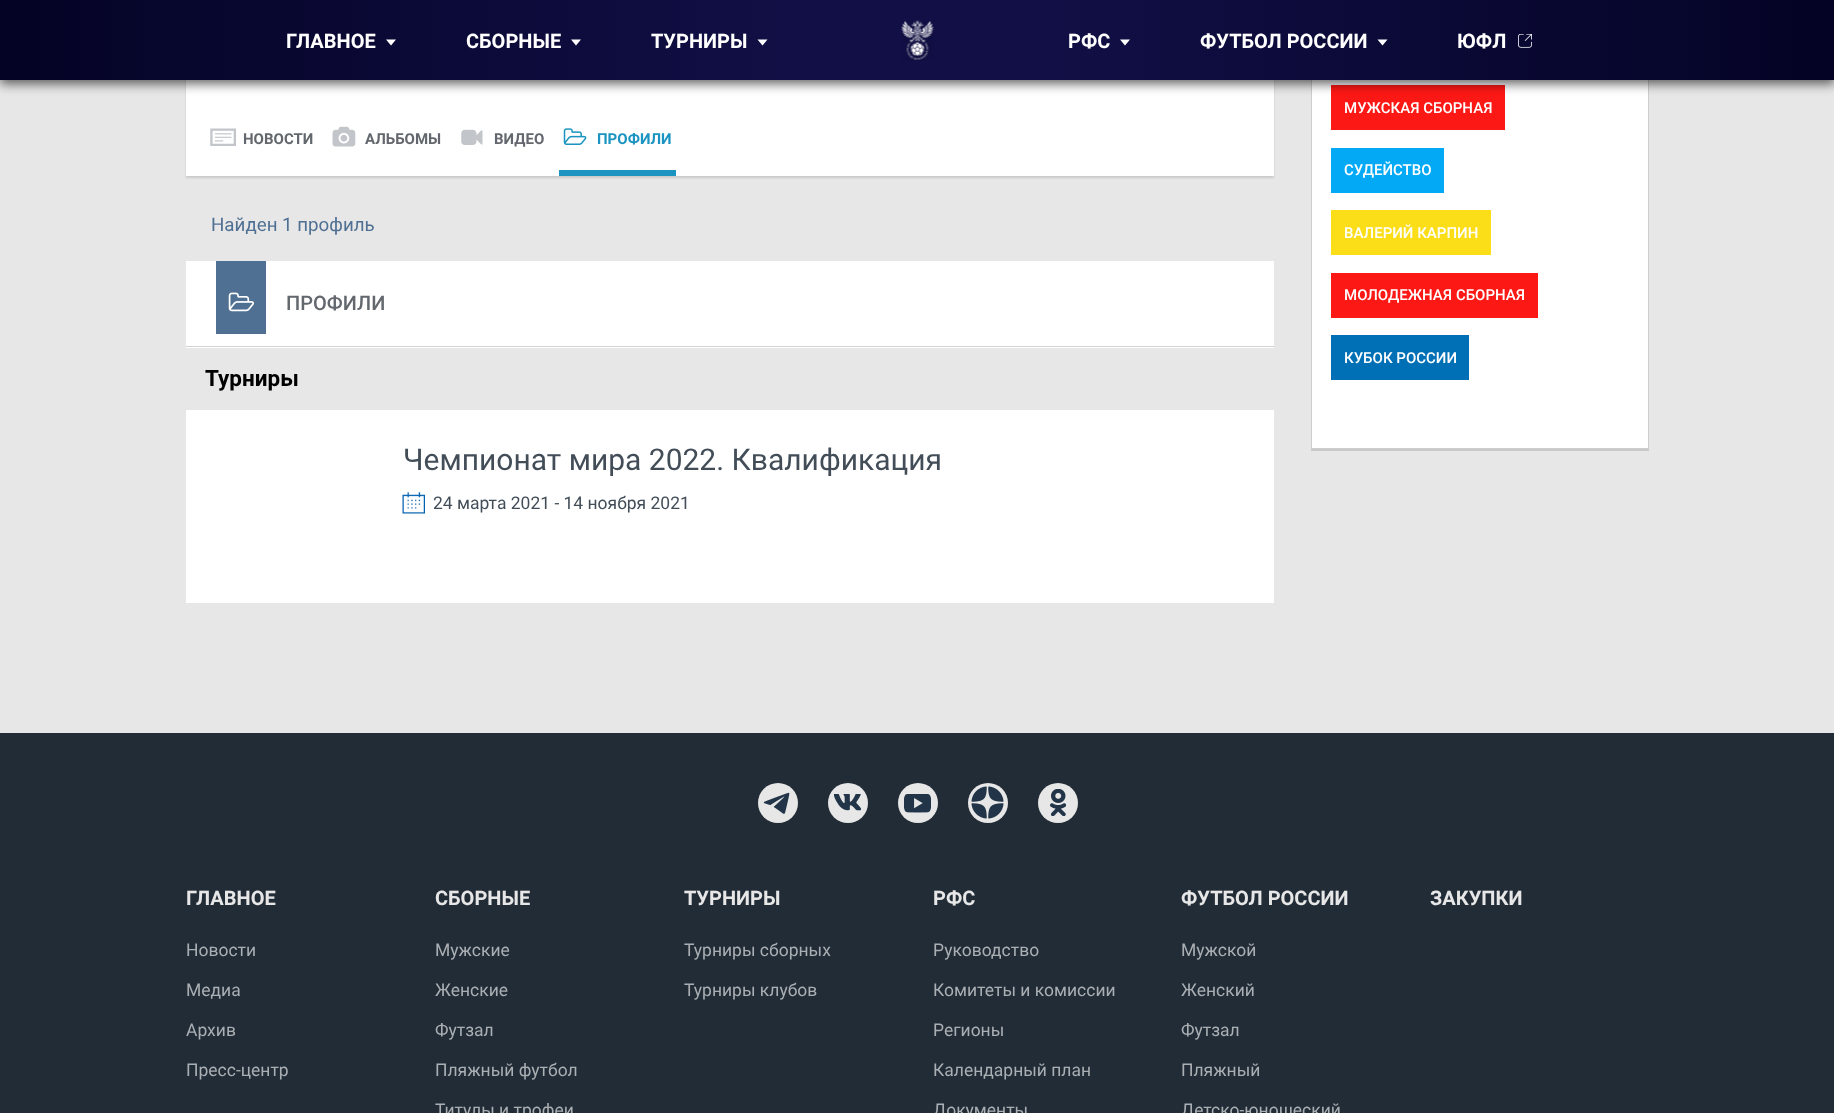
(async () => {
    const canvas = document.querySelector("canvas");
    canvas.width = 1834;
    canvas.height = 1113;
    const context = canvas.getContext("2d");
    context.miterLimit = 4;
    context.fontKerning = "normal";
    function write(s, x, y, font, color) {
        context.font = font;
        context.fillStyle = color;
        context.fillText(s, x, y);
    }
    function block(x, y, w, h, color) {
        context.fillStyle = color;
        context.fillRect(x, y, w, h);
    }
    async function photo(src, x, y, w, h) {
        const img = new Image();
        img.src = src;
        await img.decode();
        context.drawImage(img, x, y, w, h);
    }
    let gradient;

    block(0, 0, 1834, 1113, "rgb(231, 231, 231)");
    context.fillStyle = "rgb(201, 201, 201)";
    context.filter = "blur(1px)";
    context.beginPath();
    context.rect(186, -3, 1088, 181);
    context.fill();
    context.filter = "none";
    block(186, 80, 1088, 96, "rgb(255, 255, 255)");
    block(1312, 80, 336, 368, "rgb(255, 255, 255)");
    context.strokeStyle = "rgb(205, 205, 205)";
    context.strokeRect(1311.5, -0.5, 337, 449);
    block(1331, 85, 174, 45, "rgb(252, 24, 20)");
    context.fillStyle = "rgba(0, 0, 0, 0.6)";
    context.filter = "blur(5.5px)";
    context.beginPath();
    context.rect(0, 4, 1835, 80);
    context.fill();
    context.filter = "none";
    gradient = context.createLinearGradient(0, 40, 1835, 40);
    gradient.addColorStop(0, "rgb(4, 3, 37)");
    gradient.addColorStop(0.43, "rgb(17, 15, 69)");
    gradient.addColorStop(0.57, "rgb(17, 15, 69)");
    gradient.addColorStop(1, "rgb(4, 3, 37)");
    context.fillStyle = gradient;
    context.fillRect(0, 0, 1834, 80);
    write("ГЛАВНОЕ", 286, 48, "bold 20px Roboto", "rgb(255, 255, 255)");
    context.beginPath();
    context.moveTo(386, 39.5);
    context.lineTo(396, 39.5);
    context.lineTo(391, 45.5);
    context.closePath();
    context.fill();
    write("СБОРНЫЕ", 466, 48, "bold 20px Roboto", "rgb(255, 255, 255)");
    context.beginPath();
    context.moveTo(571, 39.5);
    context.lineTo(581, 39.5);
    context.lineTo(576, 45.5);
    context.closePath();
    context.fill();
    write("ТУРНИРЫ", 651, 48, "bold 20px Roboto", "rgb(255, 255, 255)");
    context.beginPath();
    context.moveTo(757.5, 39.5);
    context.lineTo(767.5, 39.5);
    context.lineTo(762.5, 45.5);
    context.closePath();
    context.fill();
    await photo("media/1.png", 901, 20, 33, 41);
    write("РФС", 1068, 48, "bold 20px Roboto", "rgb(255, 255, 255)");
    context.beginPath();
    context.moveTo(1120, 39.5);
    context.lineTo(1130, 39.5);
    context.lineTo(1125, 45.5);
    context.closePath();
    context.fill();
    write("ФУТБОЛ РОССИИ", 1200, 48, "bold 20px Roboto", "rgb(255, 255, 255)");
    context.beginPath();
    context.moveTo(1377.5, 39.5);
    context.lineTo(1387.5, 39.5);
    context.lineTo(1382.5, 45.5);
    context.closePath();
    context.fill();
    write("ЮФЛ", 1457, 48, "bold 20px Roboto", "rgb(255, 255, 255)");
    await photo("media/2.png", 1518, 34, 14, 14);
    await photo("media/3.png", 210, 128, 26, 18);
    write("НОВОСТИ", 243, 144, "bold 15px Roboto", "rgb(99, 104, 110)");
    await photo("media/4.png", 332, 126, 24, 21);
    write("АЛЬБОМЫ", 365, 144, "bold 15px Roboto", "rgb(99, 104, 110)");
    await photo("media/5.png", 461, 129, 22, 16);
    write("ВИДЕО", 494, 144, "bold 15px Roboto", "rgb(99, 104, 110)");
    block(559, 170, 117, 6, "rgb(28, 148, 193)");
    await photo("media/6.png", 563, 128, 24, 17);
    write("ПРОФИЛИ", 597, 144, "bold 15px Roboto", "rgb(28, 148, 193)");
    write("Найден 1 профиль", 211, 231, "18.75px Roboto", "rgb(80, 112, 147)");
    block(186, 261, 1088, 87, "rgb(255, 255, 255)");
    block(186, 346, 1088, 1, "rgb(211, 211, 211)");
    block(216, 261, 50, 73, "rgb(80, 112, 147)");
    await photo("media/7.png", 228, 292, 26, 20);
    write("ПРОФИЛИ", 286, 310, "500 20px Roboto", "rgb(99, 104, 110)");
    write("Турниры", 205, 386, "bold 22.5px Roboto", "rgb(0, 0, 0)");
    block(186, 410, 1088, 193, "rgb(255, 255, 255)");
    write("Чемпионат мира 2022. Квалификация", 403, 470, "30px Roboto", "rgb(66, 77, 88)");
    await photo("media/8.png", 402, 492, 23, 22);
    write("24 марта 2021 - 14 ноября 2021", 433, 509, "17.5px Roboto", "rgb(66, 77, 88)");
    context.fillStyle = "rgb(201, 201, 201)";
    context.beginPath();
    context.moveTo(1311, -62);
    context.lineTo(1311, 451);
    context.lineTo(1649, 451);
    context.lineTo(1649, -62);
    context.lineTo(1649, 449);
    context.lineTo(1311, 449);
    context.closePath();
    context.fill();
    write("МУЖСКАЯ СБОРНАЯ", 1344, 113, "500 15px Roboto", "rgb(255, 255, 255)");
    block(1331, 148, 113, 45, "rgb(3, 169, 244)");
    write("СУДЕЙСТВО", 1344, 175, "500 15px Roboto", "rgb(255, 255, 255)");
    block(1331, 210, 160, 45, "rgb(251, 221, 24)");
    write("ВАЛЕРИЙ КАРПИН", 1344, 238, "500 15px Roboto", "rgb(255, 255, 255)");
    block(1331, 273, 207, 45, "rgb(252, 24, 20)");
    write("МОЛОДЕЖНАЯ СБОРНАЯ", 1344, 300, "500 15px Roboto", "rgb(255, 255, 255)");
    block(1331, 335, 138, 45, "rgb(0, 112, 182)");
    write("КУБОК РОССИИ", 1344, 363, "500 15px Roboto", "rgb(255, 255, 255)");
    block(0, 733, 1834, 380, "rgb(34, 44, 55)");
    context.fillStyle = "rgb(231, 231, 231)";
    context.beginPath();
    context.arc(778, 803, 20, 0, Math.PI * 2);
    context.fill();
    await photo("media/9.png", 763, 792, 27, 22);
    context.beginPath();
    context.arc(848, 803, 20, 0, Math.PI * 2);
    context.fill();
    await photo("media/10.png", 834, 794, 27, 17);
    context.beginPath();
    context.arc(918, 803, 20, 0, Math.PI * 2);
    context.fill();
    await photo("media/11.png", 904, 794, 27, 19);
    context.beginPath();
    context.arc(988, 803, 20, 0, Math.PI * 2);
    context.fill();
    await photo("media/12.png", 971, 786, 33, 33);
    context.beginPath();
    context.arc(1058, 803, 20, 0, Math.PI * 2);
    context.fill();
    await photo("media/13.png", 1050, 789, 16, 27);
    write("ГЛАВНОЕ", 186, 905, "bold 20px Roboto", "rgb(231, 231, 231)");
    write("Новости", 186, 956, "17.5px Roboto", "rgb(170, 175, 179)");
    write("Медиа", 186, 996, "17.5px Roboto", "rgb(170, 175, 179)");
    write("Архив", 186, 1036, "17.5px Roboto", "rgb(170, 175, 179)");
    write("Пресс-центр", 186, 1076, "17.5px Roboto", "rgb(170, 175, 179)");
    write("СБОРНЫЕ", 435, 905, "bold 20px Roboto", "rgb(231, 231, 231)");
    write("Мужские", 435, 956, "17.5px Roboto", "rgb(170, 175, 179)");
    write("Женские", 435, 996, "17.5px Roboto", "rgb(170, 175, 179)");
    write("Футзал", 435, 1036, "17.5px Roboto", "rgb(170, 175, 179)");
    write("Пляжный футбол", 435, 1076, "17.5px Roboto", "rgb(170, 175, 179)");
    write("Титулы и трофеи", 435, 1116, "17.5px Roboto", "rgb(170, 175, 179)");
    write("ТУРНИРЫ", 684, 905, "bold 20px Roboto", "rgb(231, 231, 231)");
    write("Турниры сборных", 684, 956, "17.5px Roboto", "rgb(170, 175, 179)");
    write("Турниры клубов", 684, 996, "17.5px Roboto", "rgb(170, 175, 179)");
    write("РФС", 933, 905, "bold 20px Roboto", "rgb(231, 231, 231)");
    write("Руководство", 933, 956, "17.5px Roboto", "rgb(170, 175, 179)");
    write("Комитеты и комиссии", 933, 996, "17.5px Roboto", "rgb(170, 175, 179)");
    write("Регионы", 933, 1036, "17.5px Roboto", "rgb(170, 175, 179)");
    write("Календарный план", 933, 1076, "17.5px Roboto", "rgb(170, 175, 179)");
    write("Документы", 933, 1116, "17.5px Roboto", "rgb(170, 175, 179)");
    write("ФУТБОЛ РОССИИ", 1181, 905, "bold 20px Roboto", "rgb(231, 231, 231)");
    write("Мужской", 1181, 956, "17.5px Roboto", "rgb(170, 175, 179)");
    write("Женский", 1181, 996, "17.5px Roboto", "rgb(170, 175, 179)");
    write("Футзал", 1181, 1036, "17.5px Roboto", "rgb(170, 175, 179)");
    write("Пляжный", 1181, 1076, "17.5px Roboto", "rgb(170, 175, 179)");
    write("Детско-юношеский", 1181, 1116, "17.5px Roboto", "rgb(170, 175, 179)");
    write("ЗАКУПКИ", 1430, 905, "bold 20px Roboto", "rgb(231, 231, 231)");
})();
